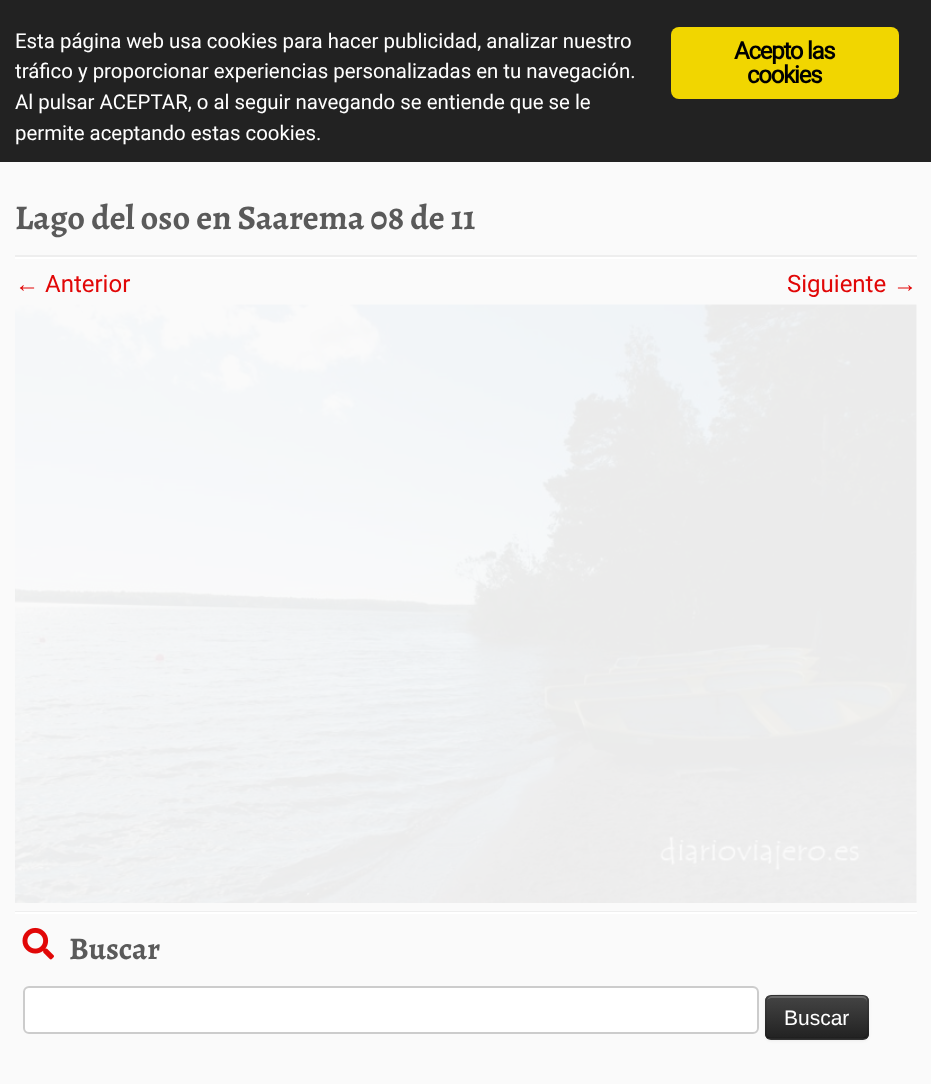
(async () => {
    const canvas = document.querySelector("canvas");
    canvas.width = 931;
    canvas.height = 1084;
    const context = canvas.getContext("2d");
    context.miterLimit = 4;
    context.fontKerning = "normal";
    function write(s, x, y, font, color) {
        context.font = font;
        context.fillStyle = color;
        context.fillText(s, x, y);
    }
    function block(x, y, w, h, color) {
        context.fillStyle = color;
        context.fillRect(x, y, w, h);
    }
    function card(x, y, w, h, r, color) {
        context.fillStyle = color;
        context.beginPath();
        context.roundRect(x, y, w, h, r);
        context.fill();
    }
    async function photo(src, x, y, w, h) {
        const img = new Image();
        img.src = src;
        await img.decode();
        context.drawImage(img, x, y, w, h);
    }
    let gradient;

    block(0, 0, 931, 1084, "rgb(250, 250, 250)");
    block(0, 0, 931, 162, "rgb(34, 34, 34)");
    write("Esta página web usa cookies para hacer publicidad, analizar nuestro", 15, 48, "20.4px Roboto", "rgb(255, 255, 255)");
    write("tráfico y proporcionar experiencias personalizadas en tu navegación.", 15, 78, "20.4px Roboto", "rgb(255, 255, 255)");
    write("Al pulsar ACEPTAR, o al seguir navegando se entiende que se le", 15, 109, "20.4px Roboto", "rgb(255, 255, 255)");
    write("permite aceptando estas cookies.", 15, 140, "20.4px Roboto", "rgb(255, 255, 255)");
    card(671, 27, 228, 72, 8, "rgb(241, 214, 0)");
    context.letterSpacing = "-1.25px";
    write("Acepto las", 734, 59, "bold 24px Roboto", "rgb(0, 0, 0)");
    write("cookies", 747, 83, "bold 24px Roboto", "rgb(0, 0, 0)");
    context.letterSpacing = "0px";
    write("Lago del oso en Saarema 08 de 11", 15, 229, "bold 34.5px Alegreya", "rgb(90, 90, 90)");
    block(15, 255, 902, 2, "rgb(238, 238, 238)");
    block(15, 257, 902, 2, "rgb(255, 255, 255)");
    write("←", 15, 292, "24px Liberation Serif", "rgb(225, 7, 7)");
    write("Anterior", 45, 292, "24px Roboto", "rgb(225, 7, 7)");
    write("Siguiente", 787, 292, "24px Roboto", "rgb(225, 7, 7)");
    write("→", 893, 292, "24px Liberation Serif", "rgb(225, 7, 7)");
    await photo("media/1.png", 15, 304, 902, 599);
    block(15, 911, 902, 1, "rgb(238, 238, 238)");
    block(15, 912, 902, 2, "rgb(255, 255, 255)");
    await photo("media/2.png", 22, 927, 32, 33);
    write("Buscar", 69, 959, "bold 31.5px Alegreya", "rgb(90, 90, 90)");
    card(23, 986, 736, 48, 6, "rgb(255, 255, 255)");
    context.fillStyle = "rgb(236, 236, 236)";
    context.beginPath();
    context.moveTo(28, 988);
    context.lineTo(753, 988);
    context.bezierCurveTo(755, 988, 758, 991, 758, 993);
    context.bezierCurveTo(758, 990, 756, 987, 753, 987);
    context.lineTo(29, 987);
    context.bezierCurveTo(26, 987, 24, 990, 24, 993);
    context.bezierCurveTo(24, 991, 26, 988, 28, 988);
    context.closePath();
    context.fill();
    context.beginPath();
    context.roundRect(24, 987, 734, 46, 5);
    context.strokeStyle = "rgb(204, 204, 204)";
    context.lineWidth = 2;
    context.stroke();
    context.fillStyle = "rgba(0, 0, 0, 0.05)";
    context.filter = "blur(1.5px)";
    context.beginPath();
    context.roundRect(765, 996, 104, 45, 6);
    context.fill();
    context.filter = "none";
    card(765, 995, 104, 45, 6, "rgb(54, 54, 54)");
    context.save();
    context.beginPath();
    context.roundRect(765, 995, 104, 45, 6);
    context.clip();
    gradient = context.createLinearGradient(817, 996, 817, 1038);
    gradient.addColorStop(0, "rgb(68, 68, 68)");
    gradient.addColorStop(1, "rgb(34, 34, 34)");
    context.fillStyle = gradient;
    context.fillRect(765, 996, 104, 42);
    context.restore();
    context.fillStyle = "rgba(255, 255, 255, 0.2)";
    context.beginPath();
    context.moveTo(771, 998);
    context.lineTo(862, 998);
    context.bezierCurveTo(865, 998, 867, 1000, 867, 1002);
    context.lineTo(867, 1001);
    context.bezierCurveTo(867, 998, 865, 996, 862, 996);
    context.lineTo(772, 996);
    context.bezierCurveTo(770, 996, 768, 998, 767, 1000);
    context.bezierCurveTo(768, 999, 770, 998, 771, 998);
    context.closePath();
    context.fill();
    context.beginPath();
    context.moveTo(866, 1037);
    context.lineTo(863, 1038.5);
    context.lineTo(770.5, 1038.5);
    context.lineTo(767.5, 1037);
    context.strokeStyle = "rgba(0, 0, 0, 0.25)";
    context.lineWidth = 1.5;
    context.stroke();
    context.beginPath();
    context.moveTo(767.5, 1037);
    context.bezierCurveTo(765, 1035, 766, 1031, 766, 1028);
    context.lineTo(766, 1017);
    context.bezierCurveTo(766, 993, 762, 995, 786, 995);
    context.lineTo(847, 995);
    context.bezierCurveTo(871.5, 995, 868, 993, 868, 1017);
    context.lineTo(868, 1028);
    context.bezierCurveTo(868, 1031, 868.5, 1035, 866, 1037);
    context.strokeStyle = "rgba(0, 0, 0, 0.1)";
    context.stroke();
    write("Buscar", 784, 1025, "21px Liberation Sans", "rgb(255, 255, 255)");
})();
